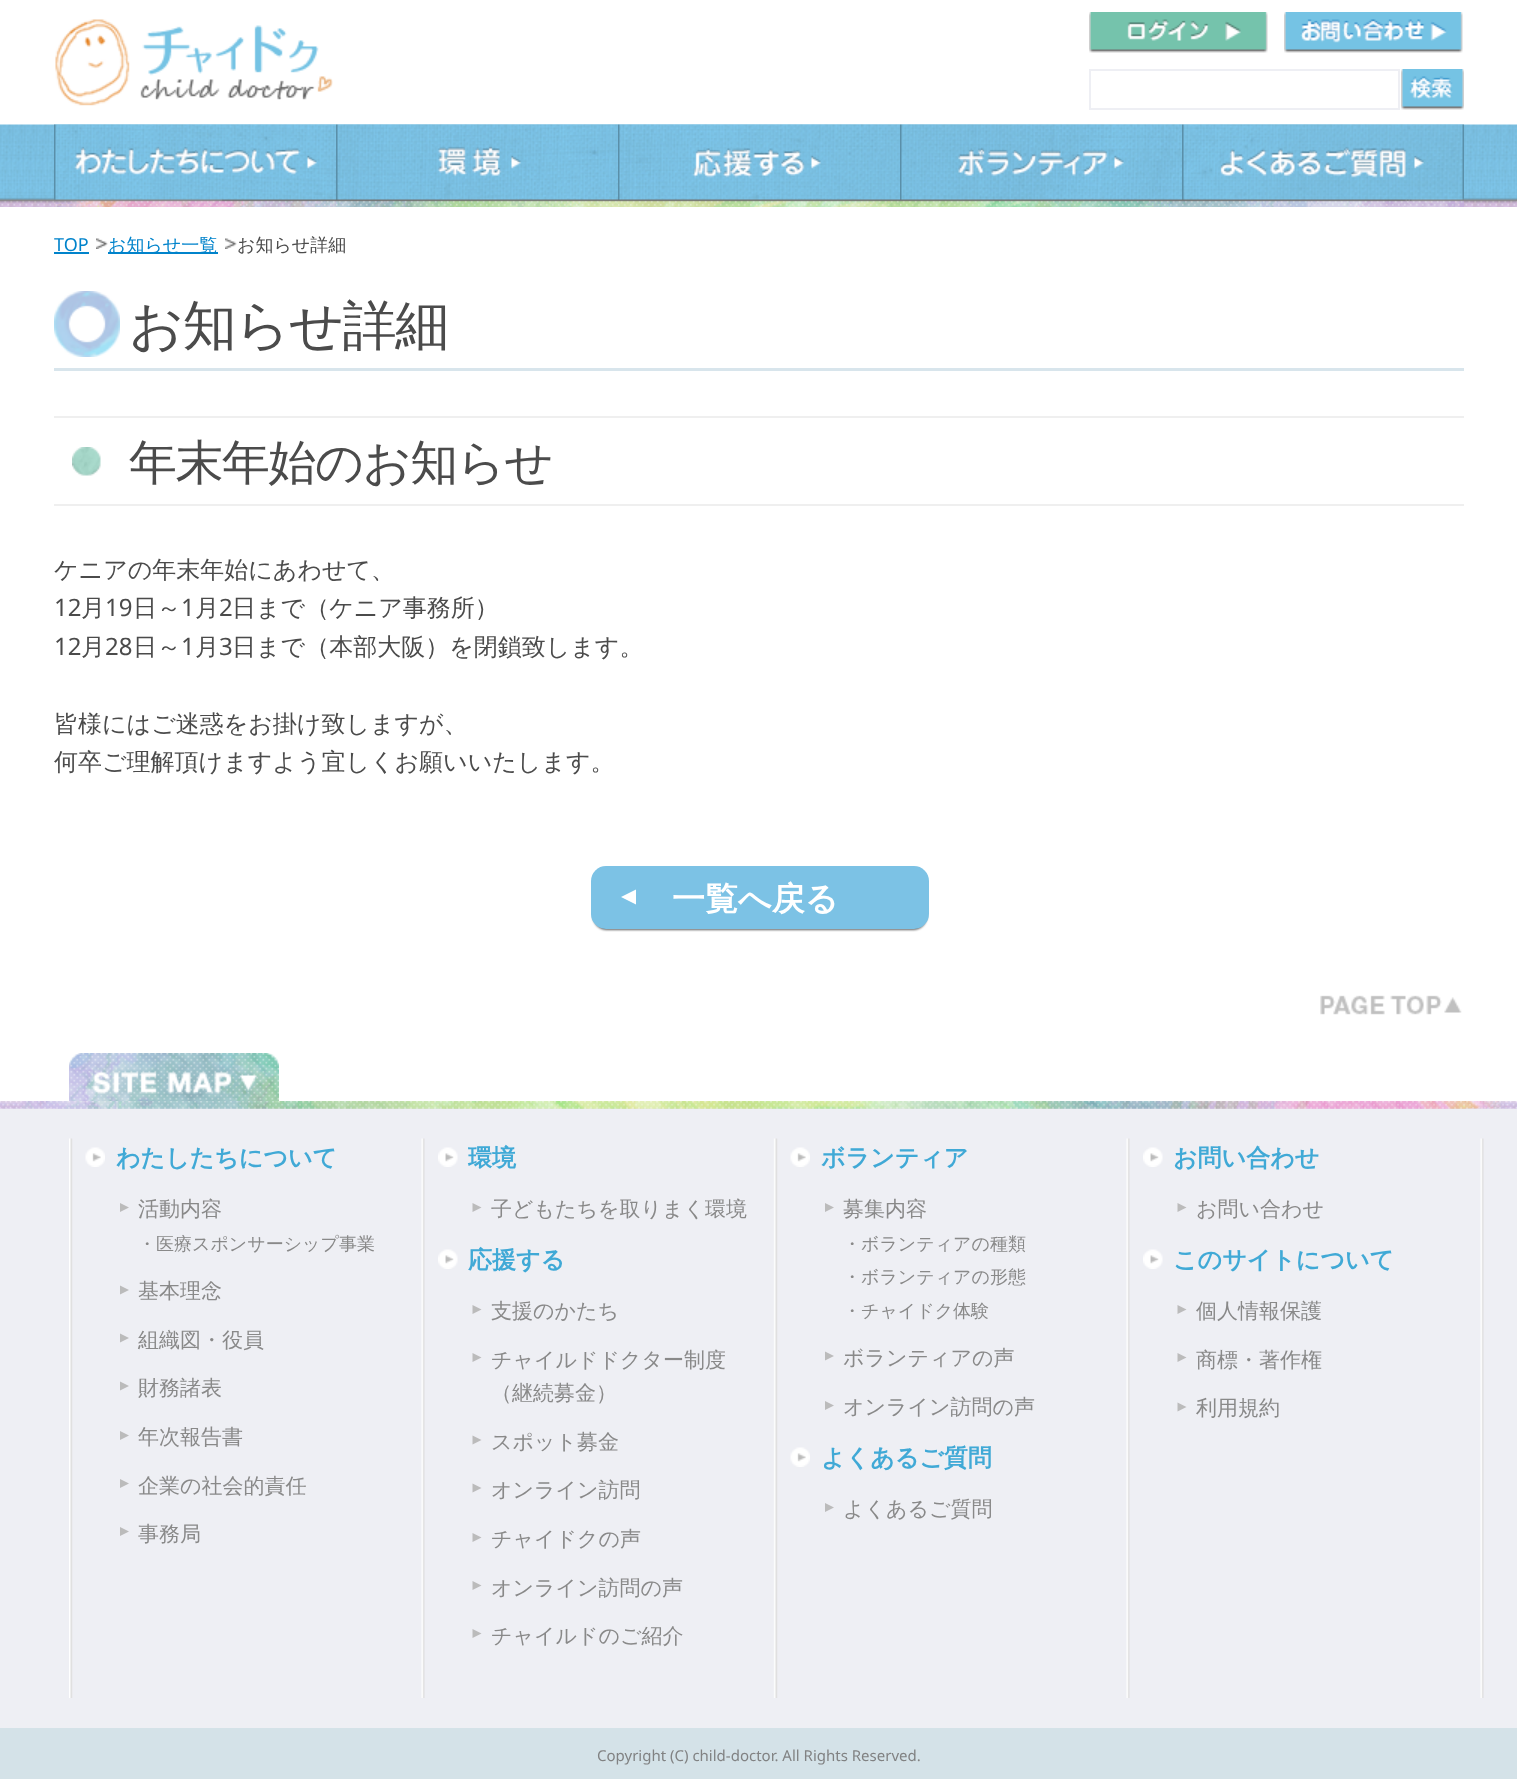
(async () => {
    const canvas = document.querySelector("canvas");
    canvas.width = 1517;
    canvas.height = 1779;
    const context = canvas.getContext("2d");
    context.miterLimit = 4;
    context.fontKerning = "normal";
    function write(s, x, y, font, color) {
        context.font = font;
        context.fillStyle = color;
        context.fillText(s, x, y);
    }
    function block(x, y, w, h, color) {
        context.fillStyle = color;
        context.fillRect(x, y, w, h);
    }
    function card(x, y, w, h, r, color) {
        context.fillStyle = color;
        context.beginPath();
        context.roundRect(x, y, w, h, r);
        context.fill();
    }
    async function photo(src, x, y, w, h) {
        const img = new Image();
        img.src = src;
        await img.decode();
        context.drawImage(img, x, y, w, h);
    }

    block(0, 0, 1517, 1779, "rgb(255, 255, 255)");
    await photo("media/1.png", 0, 124, 1517, 83);
    await photo("media/2.png", 55, 19, 278, 87);
    await photo("media/3.png", 1089, 12, 179, 41);
    await photo("media/4.png", 1284, 12, 179, 41);
    context.strokeStyle = "rgb(238, 239, 244)";
    context.lineWidth = 2;
    context.strokeRect(1090, 70, 309, 39);
    await photo("media/5.png", 1401, 69, 63, 41);
    await photo("media/6.png", 54, 124, 282, 83);
    await photo("media/7.png", 336, 124, 282, 83);
    await photo("media/8.png", 618, 124, 282, 83);
    await photo("media/9.png", 900, 124, 282, 83);
    await photo("media/10.png", 1182, 124, 282, 83);
    write("TOP", 54, 251, "18px Noto Sans", "rgb(0, 131, 203)");
    block(54, 252, 35, 2, "rgb(0, 131, 203)");
    await photo("media/11.png", 96, 238, 12, 11);
    block(108, 252, 110, 2, "rgb(0, 131, 203)");
    write("お知らせ一覧", 108, 251, "500 18px WenQuanYi Zen Hei", "rgb(0, 131, 203)");
    await photo("media/11.png", 225, 238, 12, 11);
    write("お知らせ詳細", 237, 251, "500 18px WenQuanYi Zen Hei", "rgb(75, 75, 75)");
    await photo("media/12.png", 54, 291, 66, 66);
    block(54, 368, 1410, 3, "rgb(216, 229, 236)");
    context.letterSpacing = "-1.5px";
    write("お知らせ詳細", 129, 344, "500 54px WenQuanYi Zen Hei", "rgb(75, 75, 75)");
    await photo("media/13.png", 72, 447, 29, 29);
    block(54, 416, 1410, 2, "rgb(239, 239, 239)");
    block(54, 504, 1410, 2, "rgb(239, 239, 239)");
    write("年末年始のお知らせ", 129, 479, "500 48px WenQuanYi Zen Hei", "rgb(75, 75, 75)");
    context.letterSpacing = "0px";
    write("ケニアの年末年始にあわせて、", 54, 578, "500 24px WenQuanYi Zen Hei", "rgb(75, 75, 75)");
    write("12", 54, 616, "24px Noto Sans", "rgb(75, 75, 75)");
    write("月", 81, 616, "500 24px WenQuanYi Zen Hei", "rgb(75, 75, 75)");
    write("19", 105, 616, "24px Noto Sans", "rgb(75, 75, 75)");
    write("日～", 133, 616, "500 24px WenQuanYi Zen Hei", "rgb(75, 75, 75)");
    write("1", 181, 616, "24px Noto Sans", "rgb(75, 75, 75)");
    write("月", 195, 616, "500 24px WenQuanYi Zen Hei", "rgb(75, 75, 75)");
    write("2", 219, 616, "24px Noto Sans", "rgb(75, 75, 75)");
    write("日まで（ケニア事務所）", 232, 616, "500 24px WenQuanYi Zen Hei", "rgb(75, 75, 75)");
    write("12", 54, 655, "24px Noto Sans", "rgb(75, 75, 75)");
    write("月", 81, 655, "500 24px WenQuanYi Zen Hei", "rgb(75, 75, 75)");
    write("28", 105, 655, "24px Noto Sans", "rgb(75, 75, 75)");
    write("日～", 133, 655, "500 24px WenQuanYi Zen Hei", "rgb(75, 75, 75)");
    write("1", 181, 655, "24px Noto Sans", "rgb(75, 75, 75)");
    write("月", 195, 655, "500 24px WenQuanYi Zen Hei", "rgb(75, 75, 75)");
    write("3", 219, 655, "24px Noto Sans", "rgb(75, 75, 75)");
    write("日まで（本部大阪）を閉鎖致します。", 232, 655, "500 24px WenQuanYi Zen Hei", "rgb(75, 75, 75)");
    write("皆様にはご迷惑をお掛け致しますが、", 54, 732, "500 24px WenQuanYi Zen Hei", "rgb(75, 75, 75)");
    write("何卒ご理解頂けますよう宜しくお願いいたします。", 54, 770, "500 24px WenQuanYi Zen Hei", "rgb(75, 75, 75)");
    context.fillStyle = "rgb(96, 96, 96)";
    context.filter = "blur(1px)";
    context.beginPath();
    context.roundRect(593, 870, 334, 60, 14);
    context.fill();
    context.filter = "none";
    card(591, 866, 338, 63, 15, "rgb(124, 194, 229)");
    context.fillStyle = "rgb(255, 255, 255)";
    context.beginPath();
    context.moveTo(636, 889.5);
    context.lineTo(636, 904.5);
    context.lineTo(621, 897);
    context.closePath();
    context.fill();
    write("一覧へ戻る", 672, 910, "bold 33px WenQuanYi Zen Hei", "rgb(255, 255, 255)");
    await photo("media/14.png", 1320, 995, 142, 20);
    block(0, 1108, 1517, 620, "rgb(238, 239, 244)");
    await photo("media/15.png", 0, 1108, 1517, 1);
    await photo("media/16.png", 0, 1101, 1517, 8);
    await photo("media/17.png", 58, 1108, 1408, 1);
    await photo("media/18.png", 69, 1053, 210, 48);
    await photo("media/19.png", 69, 1138, 1415, 560);
    await photo("media/20.png", 85, 1147, 20, 20);
    write("わたしたちについて", 116, 1166, "bold 24px WenQuanYi Zen Hei", "rgb(64, 169, 214)");
    context.fillStyle = "rgb(187, 187, 187)";
    context.beginPath();
    context.moveTo(120, 1212);
    context.lineTo(120, 1203);
    context.lineTo(129, 1207.5);
    context.closePath();
    context.fill();
    write("活動内容", 138, 1216, "500 21px WenQuanYi Zen Hei", "rgb(137, 137, 137)");
    write("・医療スポンサーシップ事業", 138, 1250, "500 18px WenQuanYi Zen Hei", "rgb(137, 137, 137)");
    context.fillStyle = "rgb(187, 187, 187)";
    context.beginPath();
    context.moveTo(120, 1294.5);
    context.lineTo(120, 1285.5);
    context.lineTo(129, 1290);
    context.closePath();
    context.fill();
    write("基本理念", 138, 1298, "500 21px WenQuanYi Zen Hei", "rgb(137, 137, 137)");
    context.fillStyle = "rgb(187, 187, 187)";
    context.beginPath();
    context.moveTo(120, 1342.5);
    context.lineTo(120, 1333.5);
    context.lineTo(129, 1338);
    context.closePath();
    context.fill();
    write("組織図・役員", 138, 1347, "500 21px WenQuanYi Zen Hei", "rgb(137, 137, 137)");
    context.fillStyle = "rgb(187, 187, 187)";
    context.beginPath();
    context.moveTo(120, 1390.5);
    context.lineTo(120, 1381.5);
    context.lineTo(129, 1386);
    context.closePath();
    context.fill();
    write("財務諸表", 138, 1395, "500 21px WenQuanYi Zen Hei", "rgb(137, 137, 137)");
    context.fillStyle = "rgb(187, 187, 187)";
    context.beginPath();
    context.moveTo(120, 1440);
    context.lineTo(120, 1431);
    context.lineTo(129, 1435.5);
    context.closePath();
    context.fill();
    write("年次報告書", 138, 1444, "500 21px WenQuanYi Zen Hei", "rgb(137, 137, 137)");
    context.fillStyle = "rgb(187, 187, 187)";
    context.beginPath();
    context.moveTo(120, 1488);
    context.lineTo(120, 1479);
    context.lineTo(129, 1483.5);
    context.closePath();
    context.fill();
    write("企業の社会的責任", 138, 1493, "500 21px WenQuanYi Zen Hei", "rgb(137, 137, 137)");
    context.fillStyle = "rgb(187, 187, 187)";
    context.beginPath();
    context.moveTo(120, 1536);
    context.lineTo(120, 1527);
    context.lineTo(129, 1531.5);
    context.closePath();
    context.fill();
    write("事務局", 138, 1541, "500 21px WenQuanYi Zen Hei", "rgb(137, 137, 137)");
    await photo("media/21.png", 438, 1147, 20, 20);
    write("環境", 468, 1166, "bold 24px WenQuanYi Zen Hei", "rgb(64, 169, 214)");
    context.fillStyle = "rgb(187, 187, 187)";
    context.beginPath();
    context.moveTo(472.5, 1212);
    context.lineTo(472.5, 1203);
    context.lineTo(481.5, 1207.5);
    context.closePath();
    context.fill();
    write("子どもたちを取りまく環境", 491, 1216, "500 21px WenQuanYi Zen Hei", "rgb(137, 137, 137)");
    await photo("media/21.png", 438, 1249, 20, 20);
    write("応援する", 468, 1268, "bold 24px WenQuanYi Zen Hei", "rgb(64, 169, 214)");
    context.fillStyle = "rgb(187, 187, 187)";
    context.beginPath();
    context.moveTo(472.5, 1314);
    context.lineTo(472.5, 1305);
    context.lineTo(481.5, 1309.5);
    context.closePath();
    context.fill();
    write("支援のかたち", 491, 1318, "500 21px WenQuanYi Zen Hei", "rgb(137, 137, 137)");
    context.fillStyle = "rgb(187, 187, 187)";
    context.beginPath();
    context.moveTo(472.5, 1362);
    context.lineTo(472.5, 1353);
    context.lineTo(481.5, 1357.5);
    context.closePath();
    context.fill();
    write("チャイルドドクター制度", 491, 1367, "500 21px WenQuanYi Zen Hei", "rgb(137, 137, 137)");
    write("（継続募金）", 491, 1400, "500 21px WenQuanYi Zen Hei", "rgb(137, 137, 137)");
    context.fillStyle = "rgb(187, 187, 187)";
    context.beginPath();
    context.moveTo(472.5, 1444.5);
    context.lineTo(472.5, 1435.5);
    context.lineTo(481.5, 1440);
    context.closePath();
    context.fill();
    write("スポット募金", 491, 1449, "500 21px WenQuanYi Zen Hei", "rgb(137, 137, 137)");
    context.fillStyle = "rgb(187, 187, 187)";
    context.beginPath();
    context.moveTo(472.5, 1492.5);
    context.lineTo(472.5, 1483.5);
    context.lineTo(481.5, 1488);
    context.closePath();
    context.fill();
    write("オンライン訪問", 491, 1497, "500 21px WenQuanYi Zen Hei", "rgb(137, 137, 137)");
    context.fillStyle = "rgb(187, 187, 187)";
    context.beginPath();
    context.moveTo(472.5, 1542);
    context.lineTo(472.5, 1533);
    context.lineTo(481.5, 1537.5);
    context.closePath();
    context.fill();
    write("チャイドクの声", 491, 1546, "500 21px WenQuanYi Zen Hei", "rgb(137, 137, 137)");
    context.fillStyle = "rgb(187, 187, 187)";
    context.beginPath();
    context.moveTo(472.5, 1590);
    context.lineTo(472.5, 1581);
    context.lineTo(481.5, 1585.5);
    context.closePath();
    context.fill();
    write("オンライン訪問の声", 491, 1595, "500 21px WenQuanYi Zen Hei", "rgb(137, 137, 137)");
    context.fillStyle = "rgb(187, 187, 187)";
    context.beginPath();
    context.moveTo(472.5, 1638);
    context.lineTo(472.5, 1629);
    context.lineTo(481.5, 1633.5);
    context.closePath();
    context.fill();
    write("チャイルドのご紹介", 491, 1643, "500 21px WenQuanYi Zen Hei", "rgb(137, 137, 137)");
    await photo("media/20.png", 790, 1147, 20, 20);
    write("ボランティア", 821, 1166, "bold 24px WenQuanYi Zen Hei", "rgb(64, 169, 214)");
    context.fillStyle = "rgb(187, 187, 187)";
    context.beginPath();
    context.moveTo(825, 1212);
    context.lineTo(825, 1203);
    context.lineTo(834, 1207.5);
    context.closePath();
    context.fill();
    write("募集内容", 843, 1216, "500 21px WenQuanYi Zen Hei", "rgb(137, 137, 137)");
    write("・ボランティアの種類", 843, 1250, "500 18px WenQuanYi Zen Hei", "rgb(137, 137, 137)");
    write("・ボランティアの形態", 843, 1283, "500 18px WenQuanYi Zen Hei", "rgb(137, 137, 137)");
    write("・チャイドク体験", 843, 1317, "500 18px WenQuanYi Zen Hei", "rgb(137, 137, 137)");
    context.fillStyle = "rgb(187, 187, 187)";
    context.beginPath();
    context.moveTo(825, 1360.5);
    context.lineTo(825, 1351.5);
    context.lineTo(834, 1356);
    context.closePath();
    context.fill();
    write("ボランティアの声", 843, 1365, "500 21px WenQuanYi Zen Hei", "rgb(137, 137, 137)");
    context.fillStyle = "rgb(187, 187, 187)";
    context.beginPath();
    context.moveTo(825, 1410);
    context.lineTo(825, 1401);
    context.lineTo(834, 1405.5);
    context.closePath();
    context.fill();
    write("オンライン訪問の声", 843, 1414, "500 21px WenQuanYi Zen Hei", "rgb(137, 137, 137)");
    await photo("media/20.png", 790, 1447, 20, 20);
    write("よくあるご質問", 821, 1466, "bold 24px WenQuanYi Zen Hei", "rgb(64, 169, 214)");
    context.fillStyle = "rgb(187, 187, 187)";
    context.beginPath();
    context.moveTo(825, 1512);
    context.lineTo(825, 1503);
    context.lineTo(834, 1507.5);
    context.closePath();
    context.fill();
    write("よくあるご質問", 843, 1516, "500 21px WenQuanYi Zen Hei", "rgb(137, 137, 137)");
    await photo("media/21.png", 1143, 1147, 20, 20);
    write("お問い合わせ", 1173, 1166, "bold 24px WenQuanYi Zen Hei", "rgb(64, 169, 214)");
    context.fillStyle = "rgb(187, 187, 187)";
    context.beginPath();
    context.moveTo(1177.5, 1212);
    context.lineTo(1177.5, 1203);
    context.lineTo(1186.5, 1207.5);
    context.closePath();
    context.fill();
    write("お問い合わせ", 1196, 1216, "500 21px WenQuanYi Zen Hei", "rgb(137, 137, 137)");
    await photo("media/21.png", 1143, 1249, 20, 20);
    write("このサイトについて", 1173, 1268, "bold 24px WenQuanYi Zen Hei", "rgb(64, 169, 214)");
    context.fillStyle = "rgb(187, 187, 187)";
    context.beginPath();
    context.moveTo(1177.5, 1314);
    context.lineTo(1177.5, 1305);
    context.lineTo(1186.5, 1309.5);
    context.closePath();
    context.fill();
    write("個人情報保護", 1196, 1318, "500 21px WenQuanYi Zen Hei", "rgb(137, 137, 137)");
    context.fillStyle = "rgb(187, 187, 187)";
    context.beginPath();
    context.moveTo(1177.5, 1362);
    context.lineTo(1177.5, 1353);
    context.lineTo(1186.5, 1357.5);
    context.closePath();
    context.fill();
    write("商標・著作権", 1196, 1367, "500 21px WenQuanYi Zen Hei", "rgb(137, 137, 137)");
    context.fillStyle = "rgb(187, 187, 187)";
    context.beginPath();
    context.moveTo(1177.5, 1411.5);
    context.lineTo(1177.5, 1402.5);
    context.lineTo(1186.5, 1407);
    context.closePath();
    context.fill();
    write("利用規約", 1196, 1415, "500 21px WenQuanYi Zen Hei", "rgb(137, 137, 137)");
    block(0, 1728, 1517, 51, "rgb(212, 226, 232)");
    write("Copyright (C) child-doctor. All Rights Reserved.", 597, 1761, "15px Noto Sans", "rgb(129, 130, 131)");
})();
